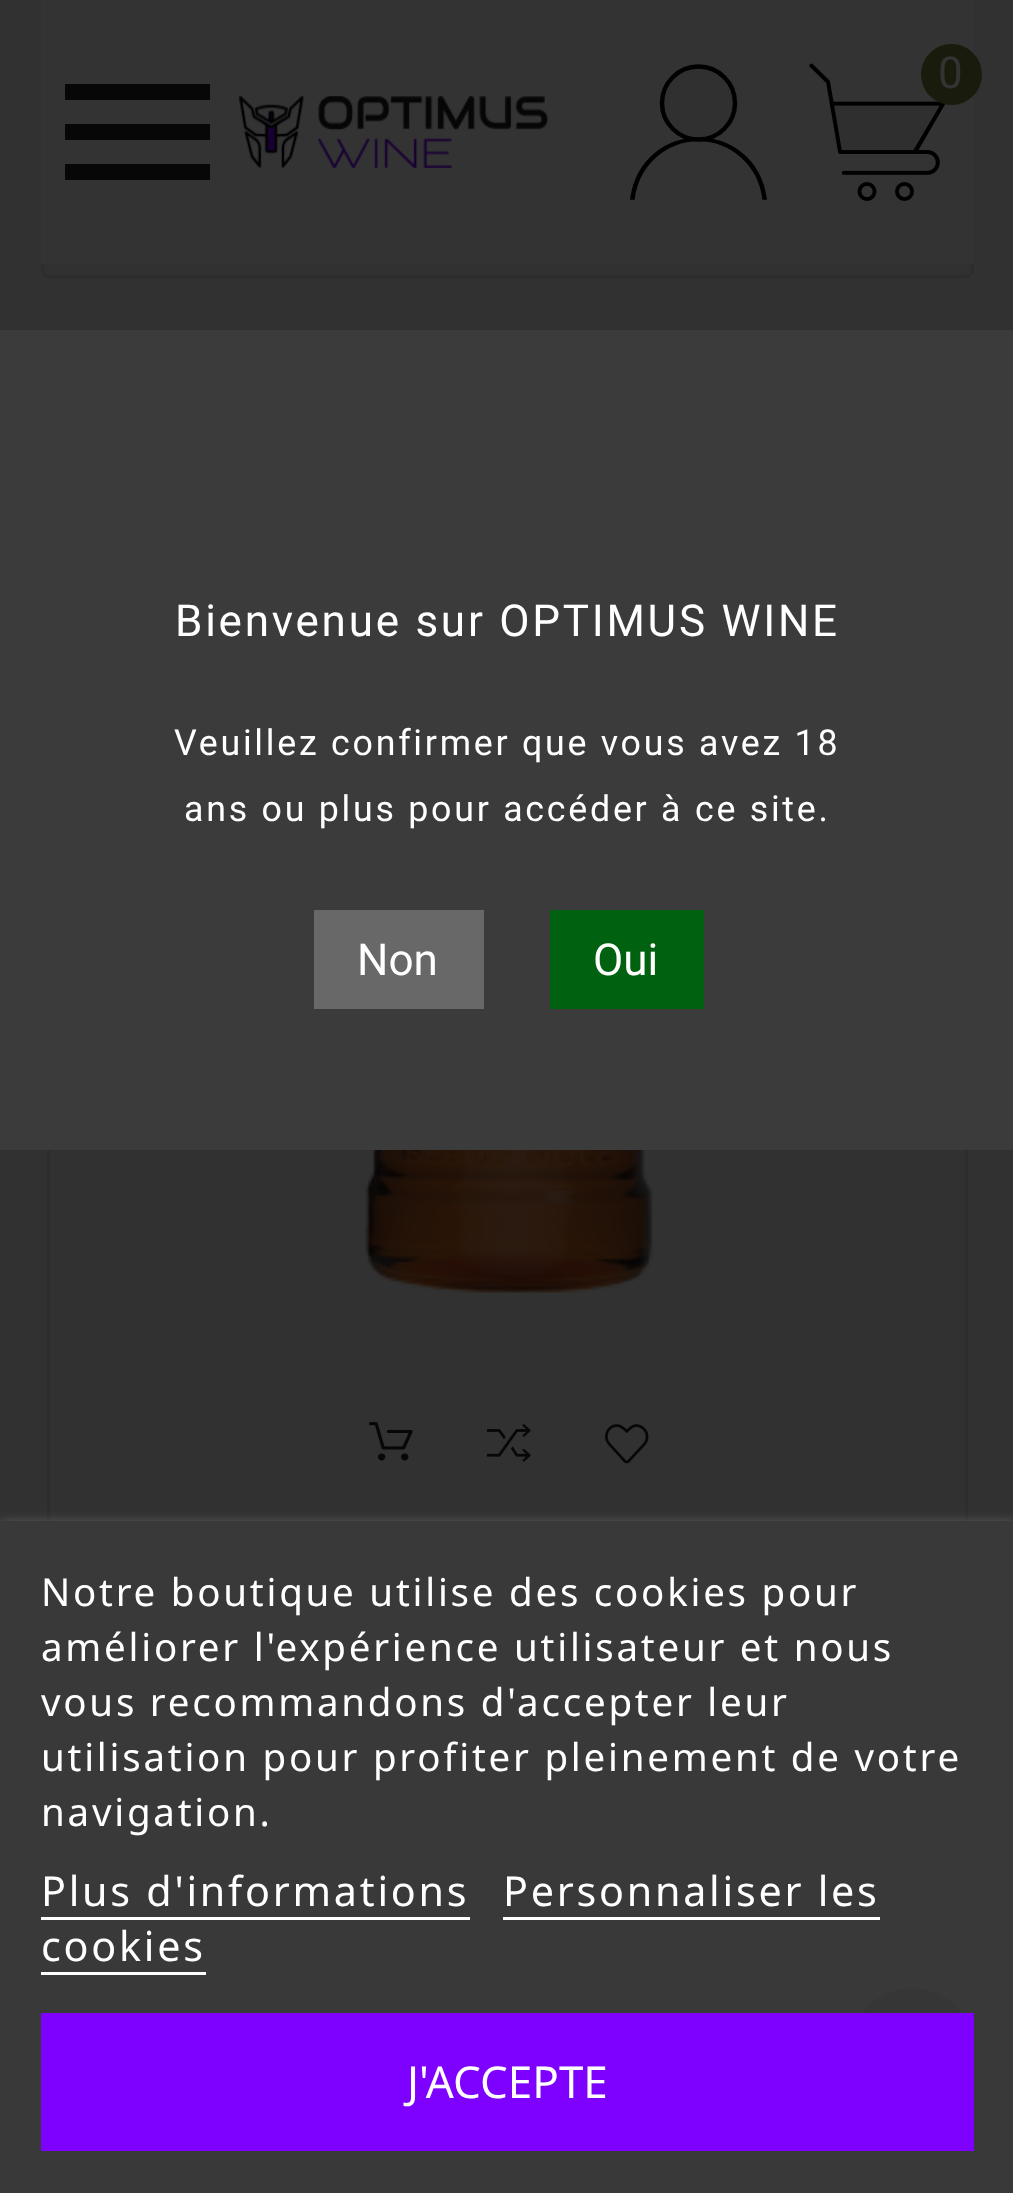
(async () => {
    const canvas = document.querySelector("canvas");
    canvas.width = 1013;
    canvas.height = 2193;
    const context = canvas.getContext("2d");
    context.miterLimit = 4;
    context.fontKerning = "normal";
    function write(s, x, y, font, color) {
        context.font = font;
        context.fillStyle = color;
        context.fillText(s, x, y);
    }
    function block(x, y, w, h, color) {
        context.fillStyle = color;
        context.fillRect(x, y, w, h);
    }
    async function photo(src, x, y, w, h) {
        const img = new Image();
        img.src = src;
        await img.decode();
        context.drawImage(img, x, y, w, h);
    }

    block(0, 0, 1013, 2193, "rgb(49, 49, 49)");
    context.beginPath();
    context.roundRect(42.5, -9.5, 930, 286, 6.5);
    context.strokeStyle = "rgba(0, 0, 0, 0.07)";
    context.lineWidth = 3;
    context.stroke();
    context.strokeRect(48.5, 367.5, 918, 1768);
    await photo("media/1.png", 365, 1150, 288, 143);
    await photo("media/2.png", 369, 1422, 44, 39);
    await photo("media/3.png", 487, 1424, 44, 38);
    await photo("media/4.png", 605, 1424, 44, 40);
    context.fillStyle = "rgb(41, 41, 41)";
    context.beginPath();
    context.moveTo(421, 1570.5);
    context.lineTo(411, 1576.5);
    context.lineTo(413.5, 1565);
    context.lineTo(404.5, 1557.5);
    context.lineTo(416, 1556.5);
    context.lineTo(421, 1546);
    context.lineTo(425.5, 1556.5);
    context.lineTo(437, 1557.5);
    context.lineTo(428, 1565);
    context.lineTo(430.5, 1576.5);
    context.closePath();
    context.fill();
    context.beginPath();
    context.moveTo(465, 1570.5);
    context.lineTo(455, 1576.5);
    context.lineTo(457.5, 1565);
    context.lineTo(448.5, 1557.5);
    context.lineTo(460, 1556.5);
    context.lineTo(465, 1546);
    context.lineTo(469.5, 1556.5);
    context.lineTo(481, 1557.5);
    context.lineTo(472, 1565);
    context.lineTo(474.5, 1576.5);
    context.closePath();
    context.fill();
    context.beginPath();
    context.moveTo(509, 1570.5);
    context.lineTo(499, 1576.5);
    context.lineTo(501.5, 1565);
    context.lineTo(492.5, 1557.5);
    context.lineTo(504, 1556.5);
    context.lineTo(509, 1546);
    context.lineTo(513.5, 1556.5);
    context.lineTo(525, 1557.5);
    context.lineTo(516, 1565);
    context.lineTo(518.5, 1576.5);
    context.closePath();
    context.fill();
    context.beginPath();
    context.moveTo(553, 1570.5);
    context.lineTo(543, 1576.5);
    context.lineTo(545.5, 1565);
    context.lineTo(536.5, 1557.5);
    context.lineTo(548, 1556.5);
    context.lineTo(553, 1546);
    context.lineTo(557.5, 1556.5);
    context.lineTo(569, 1557.5);
    context.lineTo(560, 1565);
    context.lineTo(562.5, 1576.5);
    context.closePath();
    context.fill();
    context.beginPath();
    context.moveTo(597, 1570.5);
    context.lineTo(587, 1576.5);
    context.lineTo(589.5, 1565);
    context.lineTo(580.5, 1557.5);
    context.lineTo(592, 1556.5);
    context.lineTo(597, 1546);
    context.lineTo(601.5, 1556.5);
    context.lineTo(613, 1557.5);
    context.lineTo(604, 1565);
    context.lineTo(606.5, 1576.5);
    context.closePath();
    context.fill();
    block(41, 0, 933, 264, "rgb(51, 51, 51)");
    context.beginPath();
    context.moveTo(698.5, 140);
    context.bezierCurveTo(732, 140, 759.5, 165.5, 763.5, 198.5);
    context.lineTo(765.5, 198.5);
    context.bezierCurveTo(754, 119, 643, 119, 631.5, 198.5);
    context.lineTo(633.5, 198.5);
    context.bezierCurveTo(637.5, 165.5, 665, 140, 698.5, 140);
    context.closePath();
    context.strokeStyle = "rgb(0, 0, 0)";
    context.lineWidth = 2.6;
    context.stroke();
    context.fillStyle = "rgb(48, 48, 48)";
    context.beginPath();
    context.moveTo(698, 139);
    context.bezierCurveTo(679, 139, 663, 123, 663, 103);
    context.bezierCurveTo(663, 83, 679, 67, 698, 67);
    context.bezierCurveTo(718, 67, 734, 83, 734, 103);
    context.bezierCurveTo(734, 123, 718, 139, 698, 139);
    context.fill();
    context.beginPath();
    context.arc(698.5, 103, 36.5, 0, Math.PI * 2);
    context.lineWidth = 4.4;
    context.stroke();
    await photo("media/5.png", 809, 63, 136, 138);
    context.fillStyle = "rgb(25, 27, 13)";
    context.beginPath();
    context.arc(951.5, 74.5, 30.5, 0, Math.PI * 2);
    context.fill();
    context.letterSpacing = "2.75px";
    write("0", 938, 88, "44px Roboto", "rgb(51, 51, 51)");
    context.fillStyle = "rgb(7, 7, 7)";
    context.beginPath();
    context.moveTo(65, 84);
    context.lineTo(210, 84);
    context.lineTo(210, 100);
    context.lineTo(65, 100);
    context.closePath();
    context.moveTo(65, 140);
    context.lineTo(65, 124);
    context.lineTo(210, 124);
    context.lineTo(210, 140);
    context.closePath();
    context.moveTo(65, 180);
    context.lineTo(65, 164);
    context.lineTo(210, 164);
    context.lineTo(210, 180);
    context.closePath();
    context.fill();
    await photo("media/6.png", 239, 96, 309, 72);
    context.fillStyle = "rgb(15, 15, 15)";
    context.beginPath();
    context.arc(912, 2050, 62, 0, Math.PI * 2);
    context.fill();
    context.save();
    context.beginPath();
    context.rect(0, 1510, 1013, 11);
    context.clip();
    context.fillStyle = "rgb(112, 112, 112)";
    context.filter = "blur(7px)";
    context.beginPath();
    context.rect(0, 1524, 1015, 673);
    context.fill();
    context.filter = "none";
    context.restore();
    block(0, 1521, 1013, 672, "rgba(59, 59, 59, 0.9)");
    write("Notre boutique utilise des cookies pour", 41, 1606, "38.5px Noto Sans", "rgb(255, 255, 255)");
    write("améliorer l'expérience utilisateur et nous", 41, 1661, "38.5px Noto Sans", "rgb(255, 255, 255)");
    write("vous recommandons d'accepter leur", 41, 1716, "38.5px Noto Sans", "rgb(255, 255, 255)");
    write("utilisation pour profiter pleinement de votre", 41, 1771, "38.5px Noto Sans", "rgb(255, 255, 255)");
    write("navigation.", 41, 1826, "38.5px Noto Sans", "rgb(255, 255, 255)");
    write("Plus d'informations", 41, 1906, "41.25px Noto Sans", "rgb(255, 255, 255)");
    block(41, 1917, 429, 3, "rgb(255, 255, 255)");
    write("Personnaliser les", 503, 1906, "41.25px Noto Sans", "rgb(255, 255, 255)");
    block(503, 1917, 377, 3, "rgb(255, 255, 255)");
    write("cookies", 41, 1961, "41.25px Noto Sans", "rgb(255, 255, 255)");
    block(41, 1972, 165, 3, "rgb(255, 255, 255)");
    block(41, 2013, 933, 138, "rgb(126, 0, 255)");
    context.letterSpacing = "0px";
    write("J'ACCEPTE", 407, 2098, "44px Noto Sans", "rgb(255, 255, 255)");
    block(0, 330, 1013, 820, "rgb(59, 59, 59)");
    context.letterSpacing = "2.75px";
    write("Bienvenue sur OPTIMUS WINE", 175, 636, "44px Roboto", "rgb(255, 255, 255)");
    write("Veuillez confirmer que vous avez 18", 174, 755, "35.75px Roboto", "rgb(255, 255, 255)");
    write("ans ou plus pour accéder à ce site.", 184, 821, "35.75px Roboto", "rgb(255, 255, 255)");
    block(314, 910, 170, 99, "rgb(104, 104, 104)");
    context.letterSpacing = "0px";
    write("Non", 357, 975, "44px Roboto", "rgb(255, 255, 255)");
    block(550, 910, 154, 99, "rgb(0, 98, 17)");
    write("Oui", 593, 975, "44px Roboto", "rgb(255, 255, 255)");
})();
